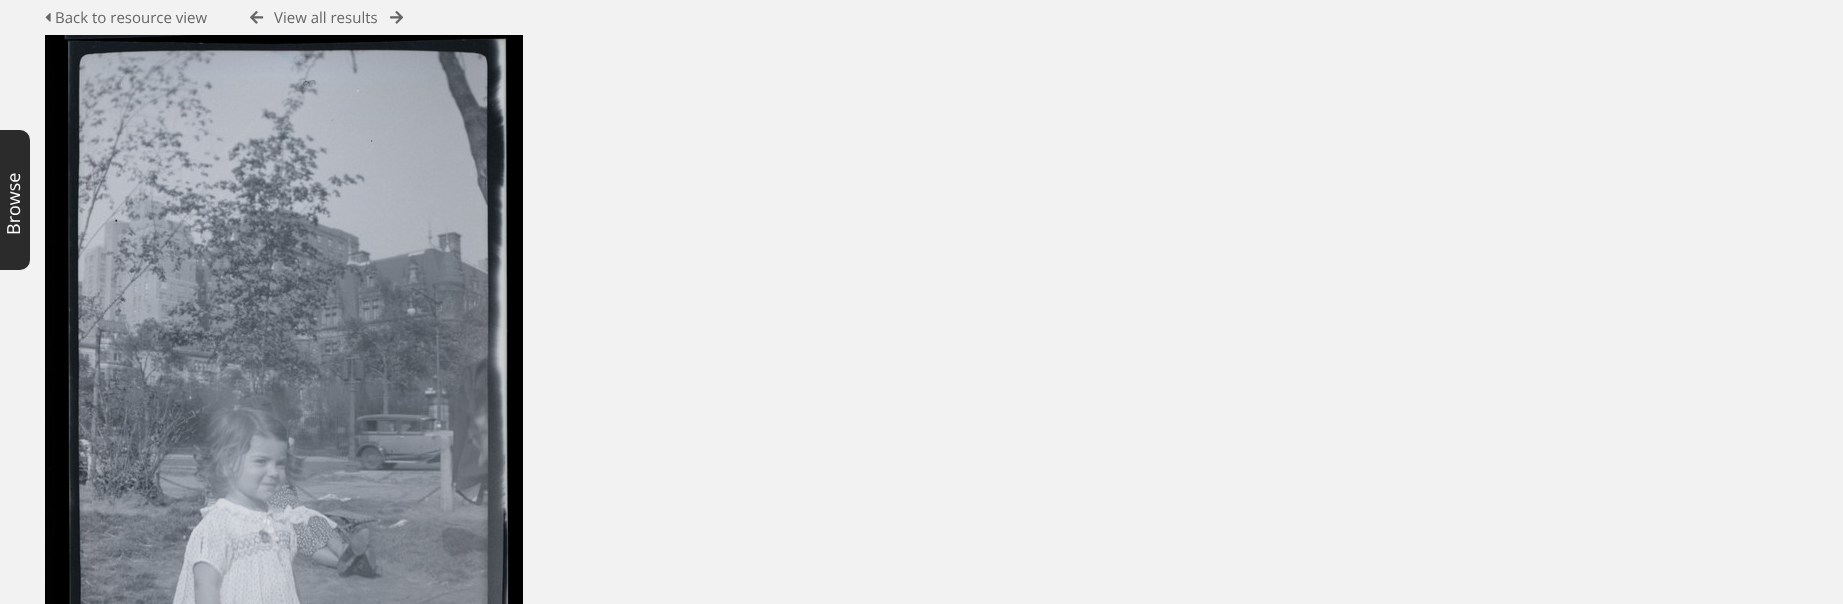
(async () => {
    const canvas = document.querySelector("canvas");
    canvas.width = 1843;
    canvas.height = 604;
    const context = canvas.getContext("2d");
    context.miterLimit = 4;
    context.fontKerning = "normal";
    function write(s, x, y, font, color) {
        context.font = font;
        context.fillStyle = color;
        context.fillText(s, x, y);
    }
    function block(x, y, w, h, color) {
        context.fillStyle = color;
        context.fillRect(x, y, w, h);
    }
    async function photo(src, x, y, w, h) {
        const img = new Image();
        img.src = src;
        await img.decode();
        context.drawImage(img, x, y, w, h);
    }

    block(0, 0, 1843, 604, "rgb(242, 242, 242)");
    await photo("media/1.png", 45, 13, 6, 9);
    write("Back to resource view", 55, 23, "15px Open Sans", "rgb(102, 102, 102)");
    await photo("media/2.png", 250, 11, 14, 13);
    write("View all results", 274, 23, "15px Open Sans", "rgb(102, 102, 102)");
    await photo("media/3.png", 390, 11, 14, 13);
    await photo("media/4.png", 45, 35, 478, 569);
    context.fillStyle = "rgb(43, 43, 43)";
    context.beginPath();
    context.roundRect(0, 130, 30, 140, [0, 10, 10, 0]);
    context.fill();
    context.font = "18px Open Sans";
    context.fillStyle = "rgb(255, 255, 255)";
    context.save();
    context.translate(20, 235);
    context.rotate(-90 * Math.PI / 180);
    context.fillText("Browse", 0, 0);
    context.restore();
})();
